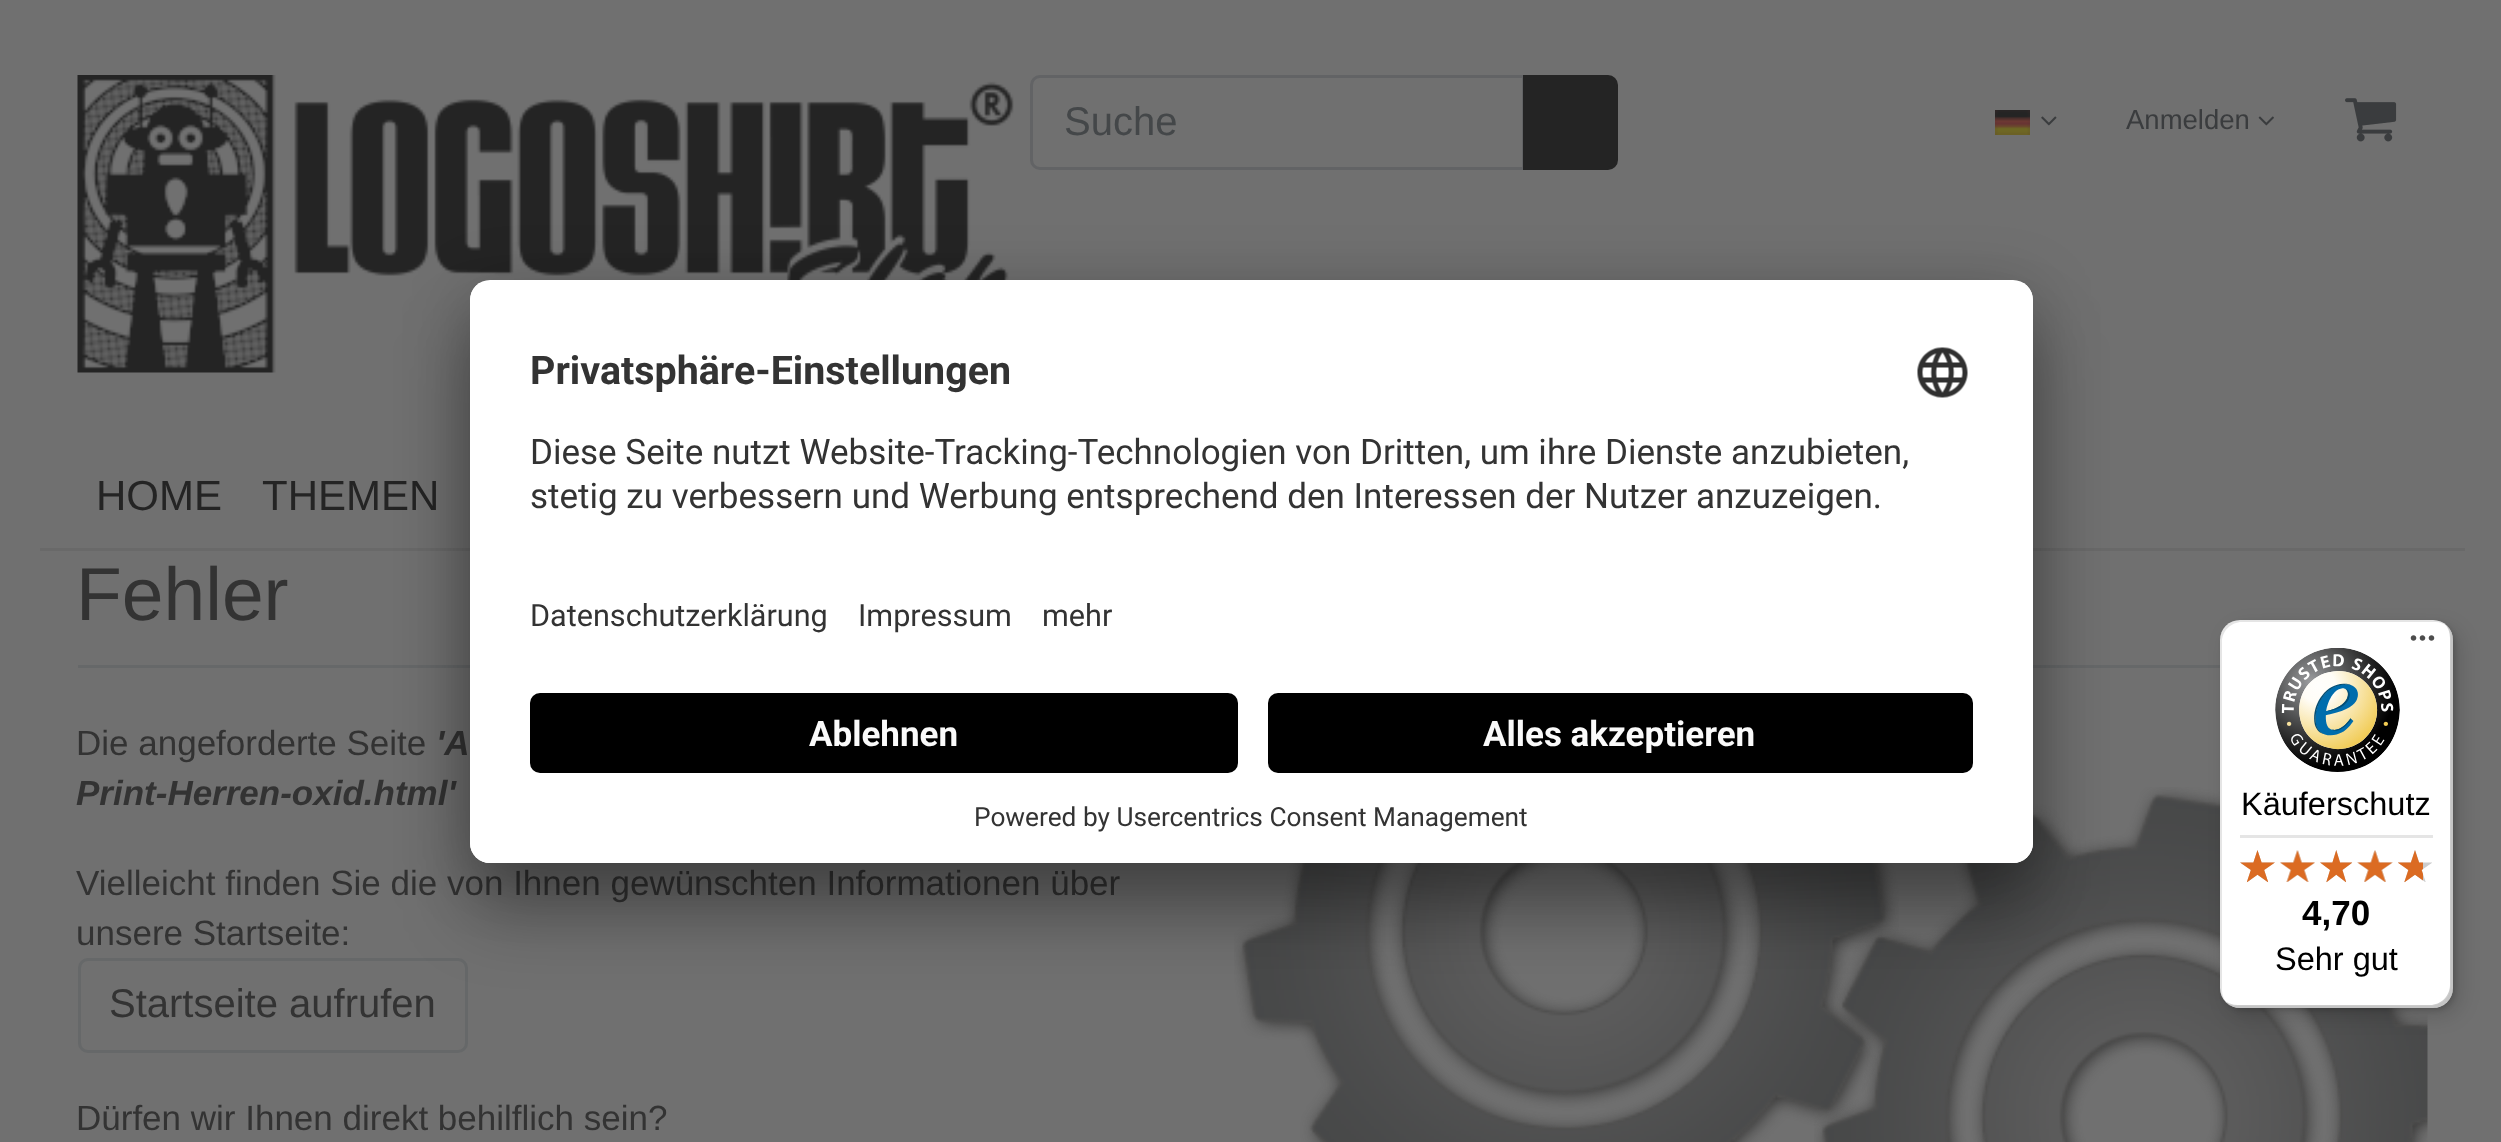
(async () => {
    const canvas = document.querySelector("canvas");
    canvas.width = 2501;
    canvas.height = 1142;
    const context = canvas.getContext("2d");
    context.miterLimit = 4;
    context.fontKerning = "normal";
    function write(s, x, y, font, color) {
        context.font = font;
        context.fillStyle = color;
        context.fillText(s, x, y);
    }
    function block(x, y, w, h, color) {
        context.fillStyle = color;
        context.fillRect(x, y, w, h);
    }
    function card(x, y, w, h, r, color) {
        context.fillStyle = color;
        context.beginPath();
        context.roundRect(x, y, w, h, r);
        context.fill();
    }
    async function photo(src, x, y, w, h) {
        const img = new Image();
        img.src = src;
        await img.decode();
        context.drawImage(img, x, y, w, h);
    }

    block(0, 0, 2501, 1142, "rgb(112, 112, 112)");
    await photo("media/1.png", 77, 75, 937, 298);
    context.beginPath();
    context.roundRect(1031.5, 76.5, 492, 92, [8.5, 0, 0, 8.5]);
    context.strokeStyle = "rgb(98, 99, 101)";
    context.lineWidth = 3;
    context.stroke();
    write("Suche", 1064, 135, "40px Liberation Sans", "rgb(68, 71, 73)");
    context.fillStyle = "rgb(36, 36, 36)";
    context.beginPath();
    context.roundRect(1524.5, 76.5, 92, 92, [0, 8.5, 8.5, 0]);
    context.fill();
    context.strokeStyle = "rgb(36, 36, 36)";
    context.stroke();
    await photo("media/2.png", 1995, 110, 35, 25);
    await photo("media/3.png", 2041, 116, 16, 10);
    write("Anmelden", 2126, 129, "27.5px Liberation Sans", "rgb(58, 60, 62)");
    await photo("media/4.png", 2258, 116, 16, 10);
    await photo("media/5.png", 2345, 98, 52, 44);
    block(40, 548, 2425, 3, "rgb(105, 105, 105)");
    write("HOME", 96, 510, "42px Liberation Sans", "rgb(36, 36, 36)");
    write("THEMEN", 262, 510, "42px Liberation Sans", "rgb(36, 36, 36)");
    block(78, 665, 2142, 3, "rgb(102, 104, 105)");
    write("Fehler", 76, 620, "75px Liberation Sans", "rgb(51, 51, 51)");
    write("Die angeforderte Seite", 76, 755, "35px Liberation Sans", "rgb(51, 51, 51)");
    write("'A", 436, 755, "italic bold 35px Liberation Sans", "rgb(51, 51, 51)");
    write("Print-Herren-oxid.html'", 76, 805, "italic bold 35px Liberation Sans", "rgb(51, 51, 51)");
    write("Vielleicht finden Sie die von Ihnen gewünschten Informationen über", 76, 895, "35px Liberation Sans", "rgb(51, 51, 51)");
    write("unsere Startseite:", 76, 945, "35px Liberation Sans", "rgb(51, 51, 51)");
    context.beginPath();
    context.roundRect(79.5, 959.5, 387, 92, 8.5);
    context.strokeStyle = "rgb(102, 104, 105)";
    context.stroke();
    write("Startseite aufrufen", 109, 1017, "40px Liberation Sans", "rgb(51, 51, 51)");
    write("Dürfen wir Ihnen direkt behilflich sein?", 76, 1130, "35px Liberation Sans", "rgb(51, 51, 51)");
    await photo("media/6.png", 1234, 863, 665, 279);
    await photo("media/7.png", 1814, 787, 614, 355);
    context.fillStyle = "rgba(0, 0, 0, 0.3)";
    context.filter = "blur(35px)";
    context.beginPath();
    context.roundRect(470, 330, 1563, 583, 20);
    context.fill();
    context.filter = "none";
    context.fillStyle = "rgba(0, 0, 0, 0.22)";
    context.filter = "blur(32.5px)";
    context.beginPath();
    context.roundRect(470, 293, 1563, 582, 20);
    context.fill();
    context.filter = "none";
    card(470, 280, 1563, 583, 20, "rgb(255, 255, 255)");
    context.save();
    context.beginPath();
    context.roundRect(470, 280, 1563, 583, 20);
    context.clip();
    context.beginPath();
    context.roundRect(470, 280, 1563, 393, [20, 20, 0, 0]);
    context.clip();
    block(470, 283, 1563, 390, "rgb(255, 255, 255)");
    context.restore();
    write("Privatsphäre-Einstellungen", 530, 384, "bold 39.4px Roboto", "rgb(51, 51, 51)");
    await photo("media/8.png", 1917, 347, 51, 51);
    write("Diese Seite nutzt Website-Tracking-Technologien von Dritten, um ihre Dienste anzubieten,", 530, 464, "35px Roboto", "rgb(51, 51, 51)");
    write("stetig zu verbessern und Werbung entsprechend den Interessen der Nutzer anzuzeigen.", 530, 508, "35px Roboto", "rgb(51, 51, 51)");
    write("Datenschutzerklärung", 530, 626, "30.6px Roboto", "rgb(51, 51, 51)");
    write("Impressum", 858, 626, "30.6px Roboto", "rgb(51, 51, 51)");
    write("mehr", 1042, 626, "30.6px Roboto", "rgb(51, 51, 51)");
    context.fillStyle = "rgb(255, 255, 255)";
    context.beginPath();
    context.roundRect(470, 673, 1563, 190, [0, 0, 20, 20]);
    context.fill();
    card(530, 693, 708, 80, 10, "rgb(0, 0, 0)");
    write("Ablehnen", 809, 746, "bold 35px Roboto", "rgb(250, 250, 250)");
    card(1268, 693, 705, 80, 10, "rgb(0, 0, 0)");
    write("Alles akzeptieren", 1483, 746, "bold 35px Roboto", "rgb(250, 250, 250)");
    write("Powered by Usercentrics Consent Management", 974, 826, "26.25px Roboto", "rgb(51, 51, 51)");
    context.fillStyle = "rgba(0, 0, 0, 0.15)";
    context.filter = "blur(10px)";
    context.beginPath();
    context.roundRect(2228, 628, 232, 387, 20);
    context.fill();
    context.filter = "none";
    context.filter = "blur(2.5px)";
    context.beginPath();
    context.roundRect(2223, 623, 232, 387, 20);
    context.fill();
    context.filter = "none";
    card(2220, 620, 233, 388, 20, "rgb(255, 255, 255)");
    context.fillStyle = "rgba(0, 0, 0, 0.1)";
    context.beginPath();
    context.moveTo(2242, 622);
    context.lineTo(2435, 622);
    context.bezierCurveTo(2440, 622, 2445, 624, 2448, 627);
    context.bezierCurveTo(2445, 623, 2439, 620, 2433, 620);
    context.lineTo(2240, 620);
    context.bezierCurveTo(2229, 620, 2220, 629, 2220, 640);
    context.lineTo(2220, 988);
    context.bezierCurveTo(2220, 994, 2223, 1000, 2227, 1003);
    context.bezierCurveTo(2224, 1000, 2222, 995, 2222, 990);
    context.lineTo(2222, 642);
    context.bezierCurveTo(2222, 631, 2231, 622, 2242, 622);
    context.closePath();
    context.fill();
    context.fillStyle = "rgba(0, 0, 0, 0.2)";
    context.beginPath();
    context.moveTo(2223, 999);
    context.bezierCurveTo(2227, 1004, 2233, 1008, 2240, 1008);
    context.lineTo(2433, 1008);
    context.bezierCurveTo(2444, 1008, 2453, 999, 2453, 988);
    context.lineTo(2453, 640);
    context.bezierCurveTo(2453, 633, 2449, 627, 2444, 623);
    context.bezierCurveTo(2448, 627, 2450, 632, 2450, 638);
    context.lineTo(2450, 985);
    context.bezierCurveTo(2450, 996, 2441, 1005, 2430, 1005);
    context.lineTo(2238, 1005);
    context.bezierCurveTo(2232, 1005, 2227, 1003, 2223, 999);
    context.closePath();
    context.fill();
    context.fillStyle = "rgba(50, 50, 50, 0.2)";
    context.beginPath();
    context.moveTo(2225, 1001);
    context.bezierCurveTo(2228, 1005, 2234, 1008, 2240, 1008);
    context.lineTo(2433, 1008);
    context.bezierCurveTo(2444, 1008, 2453, 999, 2453, 988);
    context.lineTo(2453, 640);
    context.bezierCurveTo(2453, 634, 2450, 628, 2446, 625);
    context.bezierCurveTo(2449, 628, 2451, 633, 2451, 638);
    context.lineTo(2451, 986);
    context.bezierCurveTo(2451, 997, 2442, 1006, 2431, 1006);
    context.lineTo(2238, 1006);
    context.bezierCurveTo(2233, 1006, 2228, 1004, 2225, 1001);
    context.closePath();
    context.fill();
    context.fillStyle = "rgba(255, 255, 255, 0.3)";
    context.beginPath();
    context.moveTo(2222, 996);
    context.bezierCurveTo(2225, 1003, 2232, 1008, 2240, 1008);
    context.lineTo(2433, 1008);
    context.bezierCurveTo(2444, 1008, 2453, 999, 2453, 988);
    context.lineTo(2453, 640);
    context.bezierCurveTo(2453, 632, 2448, 625, 2441, 622);
    context.bezierCurveTo(2447, 625, 2451, 632, 2451, 639);
    context.lineTo(2451, 986);
    context.bezierCurveTo(2451, 997, 2442, 1006, 2431, 1006);
    context.lineTo(2239, 1006);
    context.bezierCurveTo(2232, 1006, 2225, 1002, 2222, 996);
    context.closePath();
    context.fill();
    await photo("media/9.png", 2410, 635, 25, 6);
    await photo("media/10.png", 2275, 648, 125, 124);
    write("Käuferschutz", 2241, 815, "32.5px Liberation Sans", "rgb(0, 0, 0)");
    block(2240, 835, 193, 3, "rgb(229, 229, 229)");
    await photo("media/11.png", 2240, 850, 35, 32);
    await photo("media/12.png", 2280, 850, 35, 32);
    await photo("media/13.png", 2320, 850, 32, 32);
    await photo("media/14.png", 2357, 850, 36, 32);
    await photo("media/15.png", 2398, 850, 34, 32);
    await photo("media/16.png", 2240, 850, 35, 33);
    await photo("media/17.png", 2280, 850, 35, 32);
    await photo("media/18.png", 2320, 850, 33, 33);
    await photo("media/19.png", 2357, 850, 36, 32);
    await photo("media/20.png", 2398, 850, 25, 33);
    write("4,70", 2302, 925, "bold 35px Liberation Sans", "rgb(0, 0, 0)");
    write("Sehr gut", 2275, 970, "32.5px Liberation Sans", "rgb(0, 0, 0)");
})();
